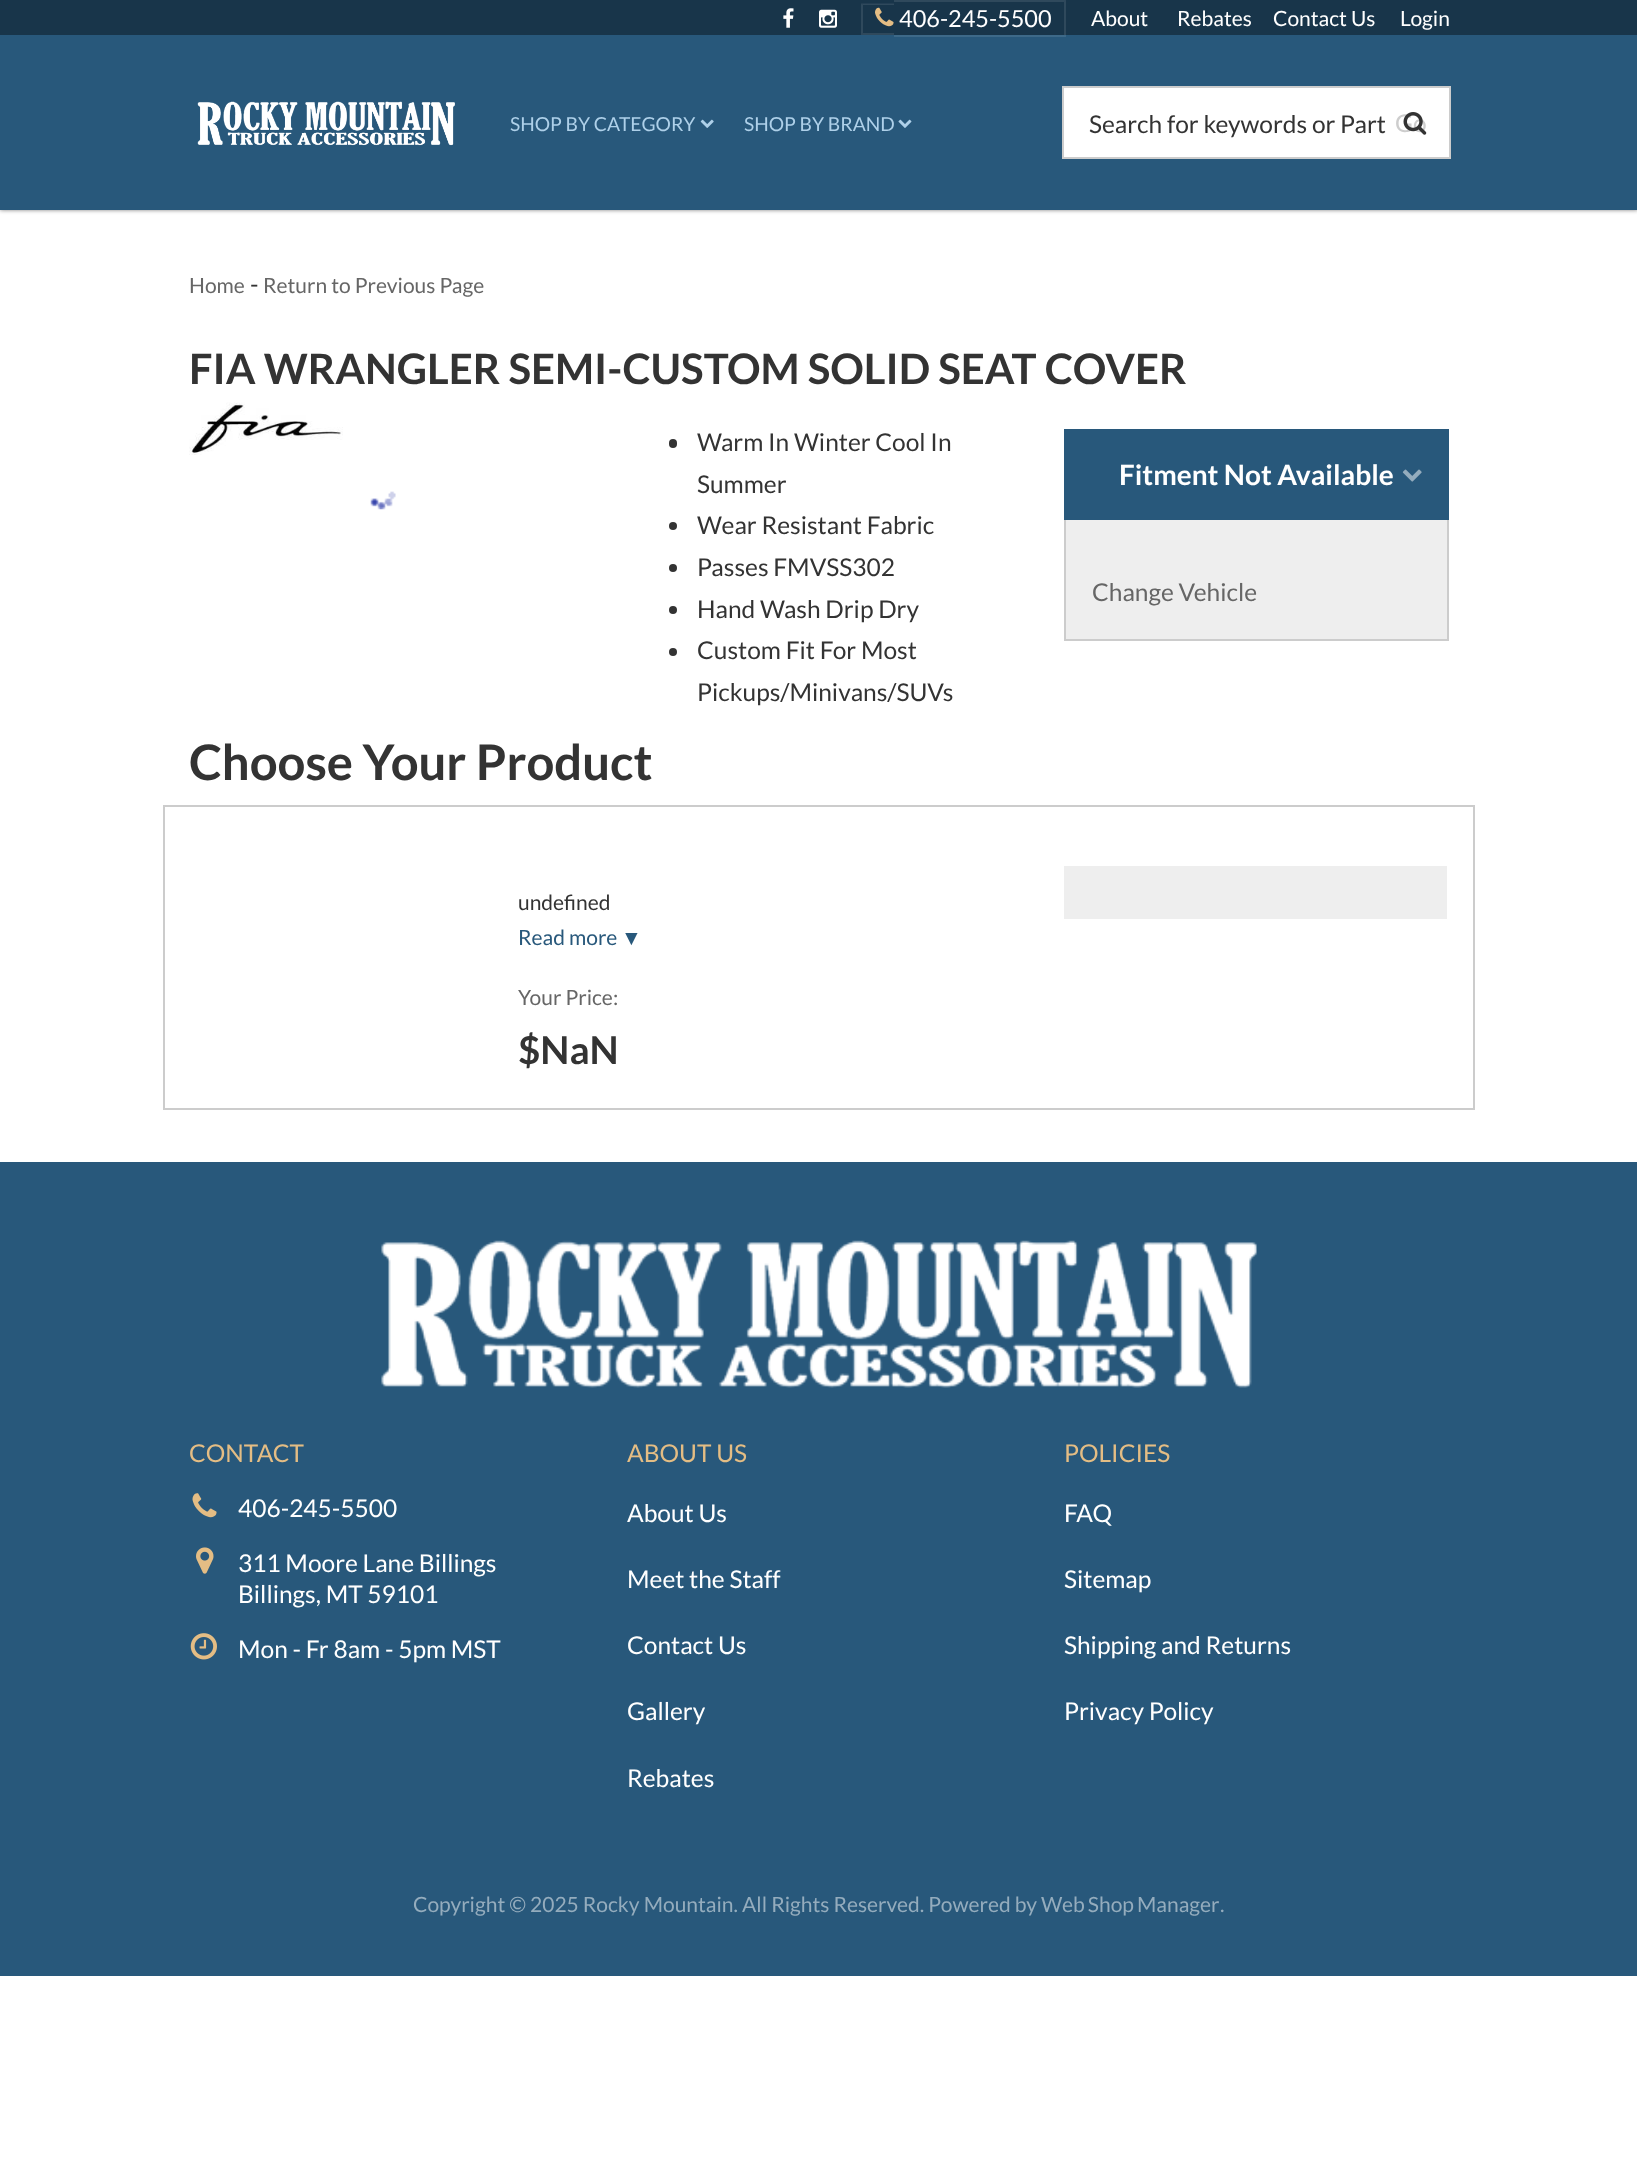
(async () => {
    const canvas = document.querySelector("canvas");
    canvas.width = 1637;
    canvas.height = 2183;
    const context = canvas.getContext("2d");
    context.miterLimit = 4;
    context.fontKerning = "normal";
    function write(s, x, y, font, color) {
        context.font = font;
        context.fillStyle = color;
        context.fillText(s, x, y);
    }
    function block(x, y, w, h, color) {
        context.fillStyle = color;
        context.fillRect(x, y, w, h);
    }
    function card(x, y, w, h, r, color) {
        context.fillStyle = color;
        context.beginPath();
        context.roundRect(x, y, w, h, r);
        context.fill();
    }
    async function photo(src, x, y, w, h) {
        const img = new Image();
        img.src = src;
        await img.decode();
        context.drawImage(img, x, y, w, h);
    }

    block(0, 0, 1637, 2183, "rgb(255, 255, 255)");
    context.fillStyle = "rgba(0, 0, 0, 0.5)";
    context.filter = "blur(2px)";
    context.beginPath();
    context.rect(0, 0, 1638, 210);
    context.fill();
    context.filter = "none";
    block(0, 35, 1637, 175, "rgb(40, 88, 123)");
    block(0, 0, 1637, 35, "rgb(24, 53, 74)");
    await photo("media/1.png", 783, 8, 11, 20);
    await photo("media/2.png", 819, 9, 18, 19);
    context.fillStyle = "rgb(47, 73, 92)";
    context.beginPath();
    context.moveTo(861, 3.5);
    context.lineTo(894, 3.5);
    context.lineTo(894, 5);
    context.lineTo(863, 5);
    context.closePath();
    context.moveTo(894, 35);
    context.lineTo(861, 35);
    context.lineTo(863, 33);
    context.lineTo(894, 33);
    context.closePath();
    context.fill();
    context.fillStyle = "rgba(255, 255, 255, 0.1)";
    context.beginPath();
    context.moveTo(861, 35);
    context.lineTo(861, 3.5);
    context.lineTo(863, 5);
    context.lineTo(863, 33);
    context.closePath();
    context.fill();
    context.fillStyle = "rgb(47, 73, 92)";
    context.beginPath();
    context.moveTo(894, 0);
    context.lineTo(1066, 0);
    context.lineTo(1064, 2);
    context.lineTo(894, 2);
    context.closePath();
    context.fill();
    context.fillStyle = "rgba(255, 255, 255, 0.1)";
    context.beginPath();
    context.moveTo(1066, 0);
    context.lineTo(1066, 37);
    context.lineTo(1064, 35);
    context.lineTo(1064, 2);
    context.closePath();
    context.fill();
    context.beginPath();
    context.moveTo(1066, 37);
    context.lineTo(894, 37);
    context.lineTo(894, 35);
    context.lineTo(1064, 35);
    context.closePath();
    context.fill();
    await photo("media/3.png", 875, 7, 19, 20);
    write("406-245-5500", 899, 27, "23.5px Lato", "rgb(255, 255, 255)");
    write("About", 1091, 26, "21px Lato", "rgb(255, 255, 255)");
    write("Rebates", 1177, 26, "21px Lato", "rgb(255, 255, 255)");
    write("Contact Us", 1273, 26, "21px Lato", "rgb(255, 255, 255)");
    write("Login", 1400, 26, "21px Lato", "rgb(255, 255, 255)");
    await photo("media/4.png", 197, 101, 258, 45);
    write("SHOP BY CATEGORY", 510, 131, "19.25px Lato", "rgb(174, 208, 233)");
    await photo("media/5.png", 700, 119, 14, 9);
    write("SHOP BY BRAND", 744, 131, "19.25px Lato", "rgb(174, 208, 233)");
    await photo("media/6.png", 898, 119, 14, 9);
    context.fillStyle = "rgb(255, 255, 255)";
    context.beginPath();
    context.rect(1063, 87, 387, 71);
    context.fill();
    context.strokeStyle = "rgb(204, 204, 204)";
    context.lineWidth = 2;
    context.stroke();
    write("Search for keywords or Part", 1089, 133, "24.5px Lato", "rgb(51, 51, 51)");
    write("Go", 1395, 132, "24.5px Lato", "rgb(205, 205, 205)");
    await photo("media/7.png", 1403, 112, 24, 23);
    write("Home", 189, 293, "21px Lato", "rgb(102, 102, 102)");
    write("-", 250, 293, "24.5px Lato", "rgb(51, 51, 51)");
    write("Return to Previous Page", 263, 293, "21px Lato", "rgb(102, 102, 102)");
    write("FIA WRANGLER SEMI-CUSTOM SOLID SEAT COVER", 189, 384, "bold 42px Lato", "rgb(51, 51, 51)");
    await photo("media/8.png", 189, 402, 154, 53);
    await photo("media/9.png", 370, 491, 26, 19);
    card(669, 439, 8, 9, 4, "rgb(51, 51, 51)");
    write("Warm In Winter Cool In", 697, 451, "24.5px Lato", "rgb(51, 51, 51)");
    write("Summer", 697, 493, "24.5px Lato", "rgb(51, 51, 51)");
    context.beginPath();
    context.arc(673, 526, 4, 0, Math.PI * 2);
    context.fill();
    write("Wear Resistant Fabric", 697, 534, "24.5px Lato", "rgb(51, 51, 51)");
    context.beginPath();
    context.arc(673, 568, 4, 0, Math.PI * 2);
    context.fill();
    write("Passes FMVSS302", 697, 576, "24.5px Lato", "rgb(51, 51, 51)");
    context.beginPath();
    context.arc(673, 610, 4, 0, Math.PI * 2);
    context.fill();
    write("Hand Wash Drip Dry", 697, 618, "24.5px Lato", "rgb(51, 51, 51)");
    context.beginPath();
    context.arc(673, 652, 4, 0, Math.PI * 2);
    context.fill();
    write("Custom Fit For Most", 697, 659, "24.5px Lato", "rgb(51, 51, 51)");
    write("Pickups/Minivans/SUVs", 697, 701, "24.5px Lato", "rgb(51, 51, 51)");
    block(1064, 429, 385, 91, "rgb(40, 88, 123)");
    write("Fitment Not Available", 1119, 485, "bold 28px Lato", "rgb(255, 255, 255)");
    await photo("media/10.png", 1402, 469, 20, 13);
    block(1066, 520, 381, 119, "rgb(238, 238, 238)");
    block(1447, 520, 2, 121, "rgb(204, 204, 204)");
    block(1064, 639, 385, 2, "rgb(204, 204, 204)");
    block(1064, 520, 2, 121, "rgb(204, 204, 204)");
    write("Change Vehicle", 1092, 601, "24.5px Lato", "rgb(102, 102, 102)");
    write("Choose Your Product", 189, 780, "bold 49px Lato", "rgb(51, 51, 51)");
    context.strokeRect(164, 806, 1310, 303);
    write("undefined", 518, 910, "21px Lato", "rgb(51, 51, 51)");
    write("Read more", 518, 945, "21px Lato", "rgb(40, 88, 123)");
    write("▼", 621, 945, "21px Liberation Sans", "rgb(40, 88, 123)");
    write("Your Price:", 518, 1005, "21px Lato", "rgb(102, 102, 102)");
    write("$NaN", 518, 1064, "bold 38.5px Lato", "rgb(51, 51, 51)");
    block(1064, 866, 383, 53, "rgb(238, 238, 238)");
    block(0, 1162, 1637, 814, "rgb(40, 88, 123)");
    await photo("media/11.png", 381, 1240, 876, 148);
    write("CONTACT", 189, 1462, "24.5px Lato", "rgb(228, 189, 132)");
    await photo("media/12.png", 192, 1493, 25, 25);
    write("406-245-5500", 238, 1517, "24.5px Lato", "rgb(255, 255, 255)");
    await photo("media/13.png", 196, 1547, 18, 27);
    write("311 Moore Lane Billings", 238, 1572, "24.5px Lato", "rgb(255, 255, 255)");
    write("Billings, MT 59101", 238, 1603, "24.5px Lato", "rgb(255, 255, 255)");
    await photo("media/14.png", 190, 1633, 27, 27);
    write("Mon - Fr 8am - 5pm MST", 238, 1658, "24.5px Lato", "rgb(255, 255, 255)");
    write("ABOUT US", 627, 1462, "24.5px Lato", "rgb(228, 189, 132)");
    write("About Us", 627, 1522, "24.5px Lato", "rgb(255, 255, 255)");
    write("Meet the Staff", 627, 1588, "24.5px Lato", "rgb(255, 255, 255)");
    write("Contact Us", 627, 1654, "24.5px Lato", "rgb(255, 255, 255)");
    write("Gallery", 627, 1720, "24.5px Lato", "rgb(255, 255, 255)");
    write("Rebates", 627, 1787, "24.5px Lato", "rgb(255, 255, 255)");
    write("POLICIES", 1064, 1462, "24.5px Lato", "rgb(228, 189, 132)");
    write("FAQ", 1064, 1522, "24.5px Lato", "rgb(255, 255, 255)");
    write("Sitemap", 1064, 1588, "24.5px Lato", "rgb(255, 255, 255)");
    write("Shipping and Returns", 1064, 1654, "24.5px Lato", "rgb(255, 255, 255)");
    write("Privacy Policy", 1064, 1720, "24.5px Lato", "rgb(255, 255, 255)");
    write("Copyright © 2025 Rocky Mountain. All Rights Reserved. Powered by", 413, 1912, "21px Lato", "rgb(148, 172, 189)");
    context.wordSpacing = "-1px";
    write("Web Shop Manager", 1041, 1912, "21px Lato", "rgb(148, 172, 189)");
    context.wordSpacing = "0px";
    write(".", 1220, 1912, "21px Lato", "rgb(148, 172, 189)");
})();
